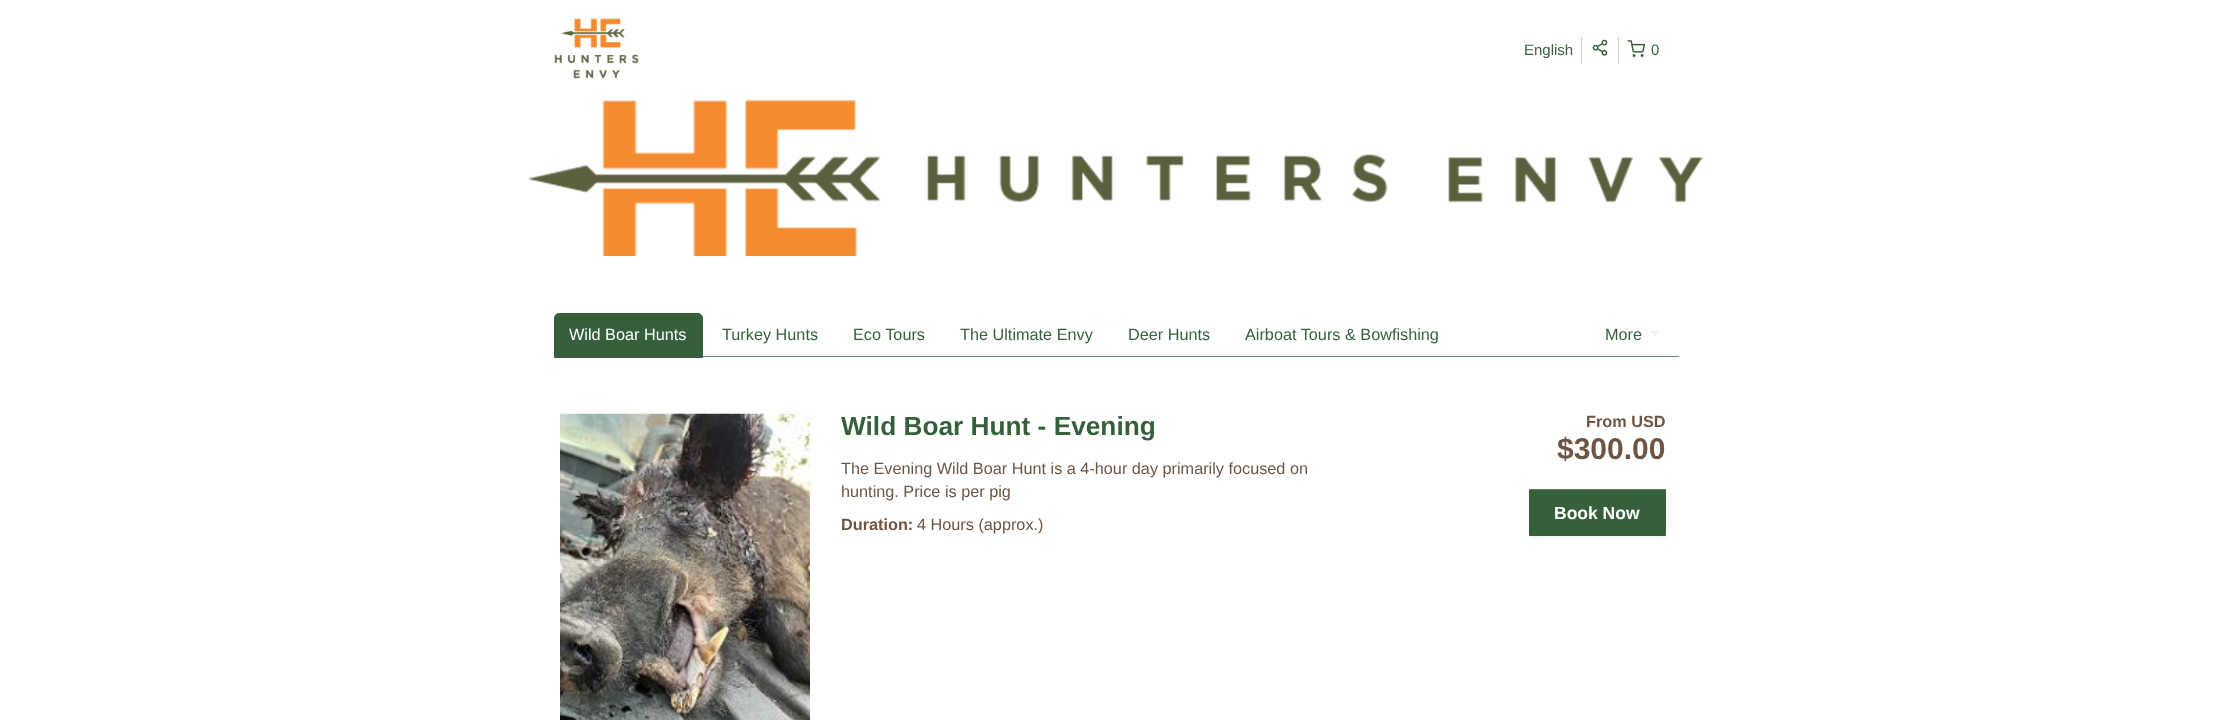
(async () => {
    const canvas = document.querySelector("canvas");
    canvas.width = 2231;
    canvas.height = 720;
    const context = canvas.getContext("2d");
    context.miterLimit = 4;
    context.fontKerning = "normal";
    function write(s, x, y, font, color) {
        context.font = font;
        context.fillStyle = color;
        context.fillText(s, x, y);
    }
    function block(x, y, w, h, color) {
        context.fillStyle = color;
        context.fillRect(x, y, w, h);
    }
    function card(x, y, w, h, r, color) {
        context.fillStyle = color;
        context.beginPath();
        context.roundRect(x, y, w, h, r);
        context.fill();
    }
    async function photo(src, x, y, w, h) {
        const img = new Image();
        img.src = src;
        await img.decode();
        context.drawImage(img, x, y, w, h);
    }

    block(0, 0, 2231, 720, "rgb(255, 255, 255)");
    await photo("media/1.png", 554, 18, 85, 61);
    block(1581, 36, 1, 28, "rgb(204, 209, 202)");
    write("English", 1524, 55, "15px Liberation Sans", "rgb(54, 95, 60)");
    block(1618, 36, 1, 28, "rgb(204, 209, 202)");
    await photo("media/2.png", 1592, 39, 16, 17);
    await photo("media/3.png", 1627, 40, 18, 17);
    write("0", 1651, 55, "15px Liberation Sans", "rgb(54, 95, 60)");
    await photo("media/4.png", 529, 100, 1174, 157);
    block(703, 356, 976, 1, "rgb(104, 135, 109)");
    context.fillStyle = "rgb(54, 95, 60)";
    context.beginPath();
    context.roundRect(554.5, 313.5, 148, 44, [4.5, 4.5, 0, 0]);
    context.fill();
    context.strokeStyle = "rgb(54, 95, 60)";
    context.stroke();
    write("Wild Boar Hunts", 569, 340, "16.25px Liberation Sans", "rgb(255, 255, 255)");
    write("Turkey Hunts", 722, 340, "16.25px Liberation Sans", "rgb(54, 95, 60)");
    write("Eco Tours", 853, 340, "16.25px Liberation Sans", "rgb(54, 95, 60)");
    write("The Ultimate Envy", 960, 340, "16.25px Liberation Sans", "rgb(54, 95, 60)");
    write("Deer Hunts", 1128, 340, "16.25px Liberation Sans", "rgb(54, 95, 60)");
    write("Airboat Tours & Bowfishing", 1245, 340, "16.25px Liberation Sans", "rgb(54, 95, 60)");
    write("More", 1605, 340, "16.25px Liberation Sans", "rgb(54, 95, 60)");
    context.fillStyle = "rgb(240, 241, 239)";
    context.beginPath();
    context.moveTo(1650, 331);
    context.lineTo(1660, 331);
    context.lineTo(1655, 336);
    context.closePath();
    context.fill();
    await photo("media/5.png", 560, 413, 250, 307);
    write("Wild Boar Hunt - Evening", 841, 435, "bold 26.25px Liberation Sans", "rgb(54, 95, 60)");
    write("The Evening Wild Boar Hunt is a 4-hour day primarily focused on", 841, 474, "16.25px Liberation Sans", "rgb(110, 85, 67)");
    write("hunting. Price is per pig", 841, 497, "16.25px Liberation Sans", "rgb(110, 85, 67)");
    write("Duration:", 841, 530, "bold 16.25px Liberation Sans", "rgb(110, 85, 67)");
    write("4 Hours (approx.)", 917, 530, "16.25px Liberation Sans", "rgb(110, 85, 67)");
    write("From USD", 1586, 427, "bold 16.25px Liberation Sans", "rgb(110, 85, 67)");
    write("$300.00", 1557, 459, "bold 30px Liberation Sans", "rgb(110, 85, 67)");
    context.fillStyle = "rgba(0, 0, 0, 0.05)";
    context.filter = "blur(1px)";
    context.beginPath();
    context.roundRect(1529, 490, 137, 48, 1);
    context.fill();
    context.filter = "none";
    card(1529, 489, 137, 47, 1, "rgb(54, 95, 60)");
    context.fillStyle = "rgba(255, 255, 255, 0.2)";
    context.beginPath();
    context.moveTo(1530, 490);
    context.lineTo(1666, 490);
    context.lineTo(1666, 491);
    context.lineTo(1666, 489);
    context.lineTo(1552, 489);
    context.bezierCurveTo(1552, 489, 1529, 483, 1529, 491);
    context.closePath();
    context.fill();
    write("Book Now", 1554, 519, "bold 17.5px Liberation Sans", "rgb(255, 255, 255)");
})();
